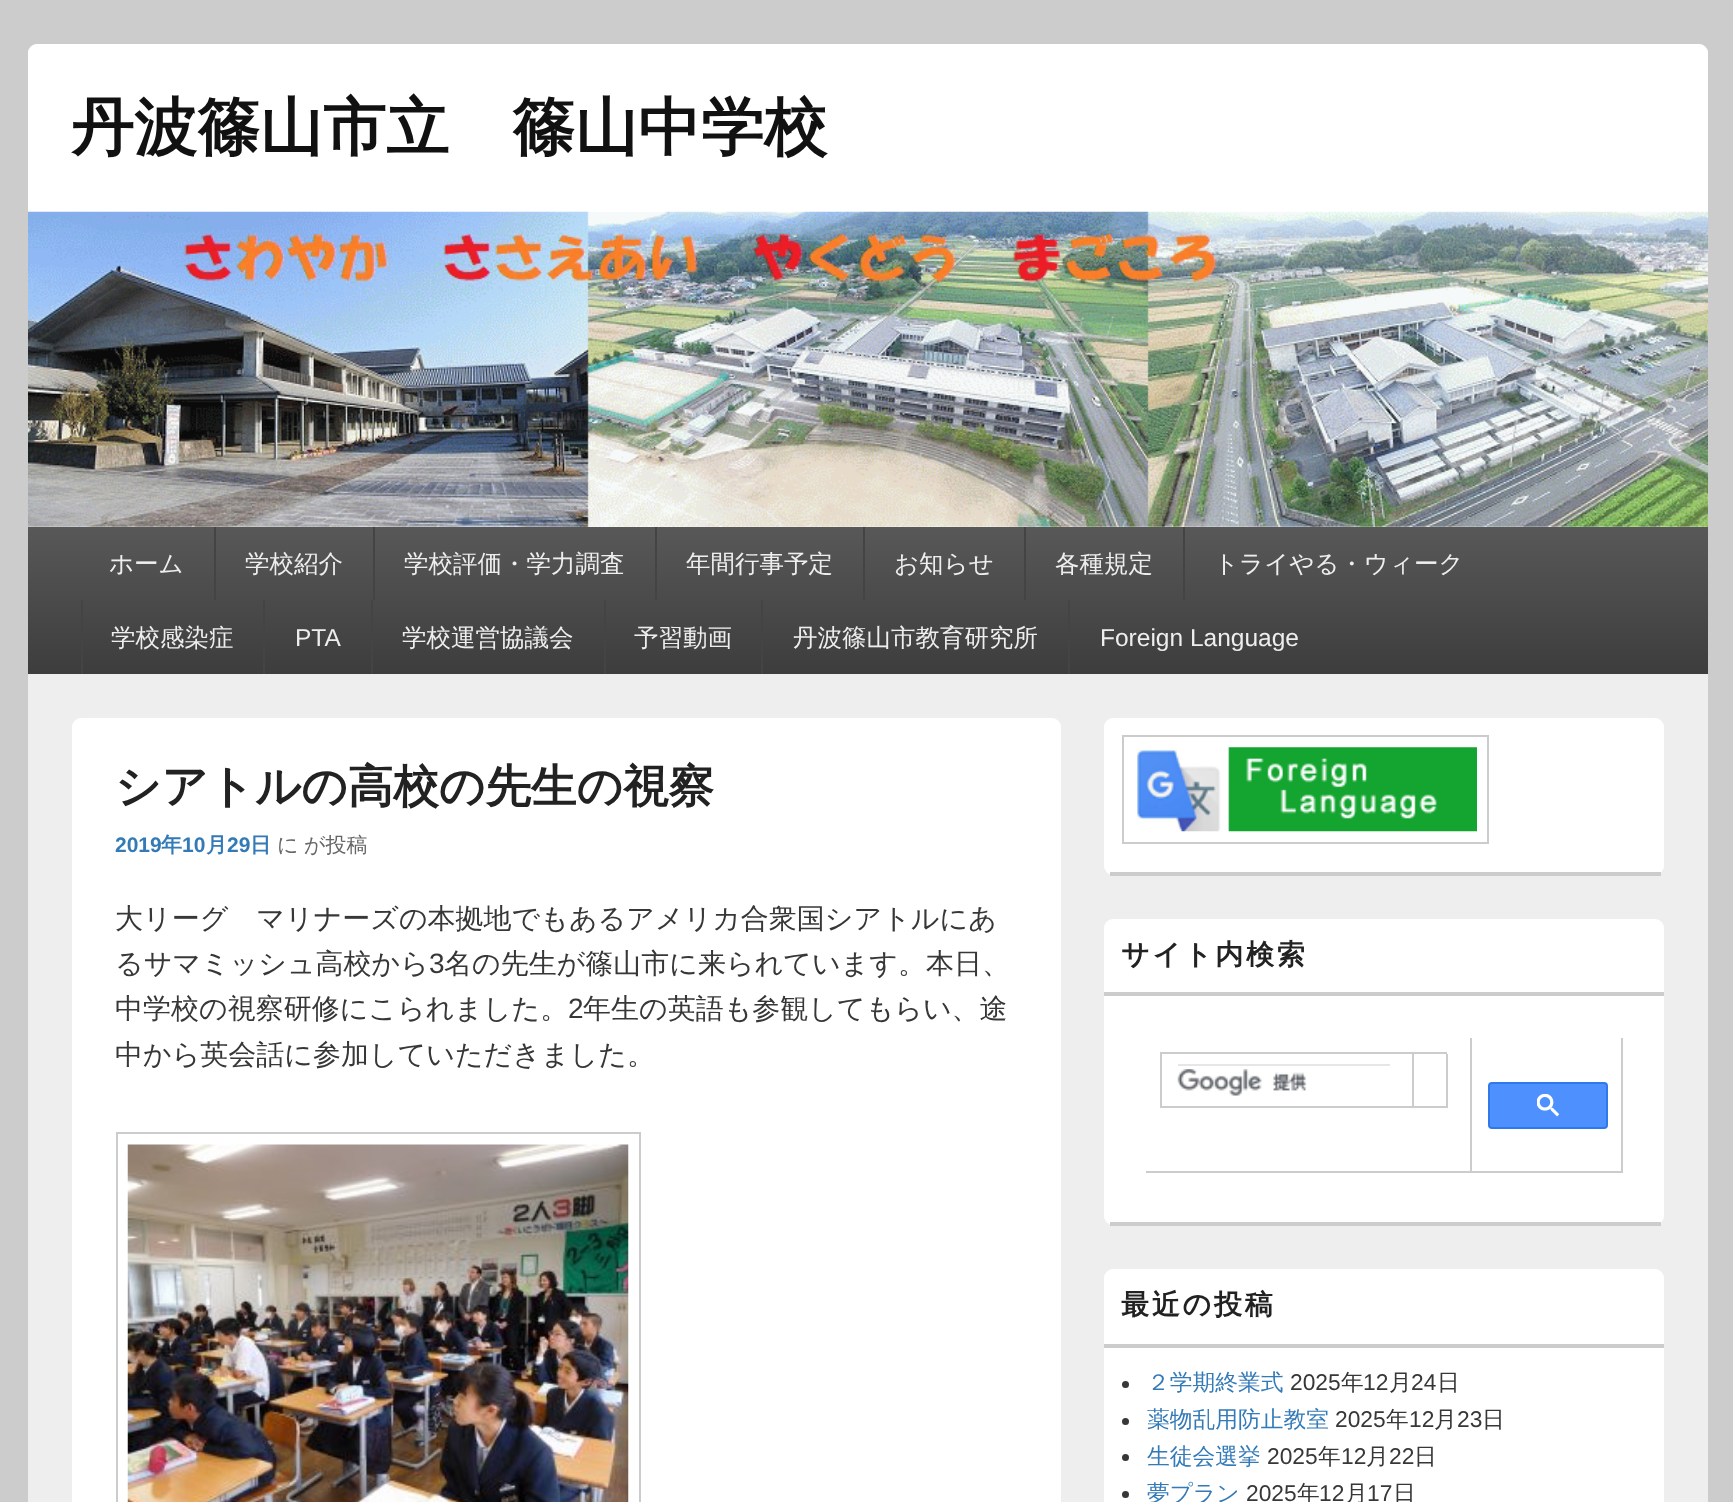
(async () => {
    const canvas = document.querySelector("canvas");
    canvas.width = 1733;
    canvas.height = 1502;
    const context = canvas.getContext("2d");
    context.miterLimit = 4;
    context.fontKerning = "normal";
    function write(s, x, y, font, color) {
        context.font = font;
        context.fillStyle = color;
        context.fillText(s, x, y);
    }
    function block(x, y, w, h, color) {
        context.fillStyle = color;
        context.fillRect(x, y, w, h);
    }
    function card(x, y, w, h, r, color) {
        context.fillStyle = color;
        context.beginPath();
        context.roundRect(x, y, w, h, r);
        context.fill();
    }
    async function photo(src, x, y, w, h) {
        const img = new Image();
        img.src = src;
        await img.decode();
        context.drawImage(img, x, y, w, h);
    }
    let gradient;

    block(0, 0, 1733, 1502, "rgb(204, 204, 204)");
    card(28, 44, 1680, 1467, 9, "rgb(238, 238, 238)");
    context.fillStyle = "rgb(255, 255, 255)";
    context.beginPath();
    context.roundRect(28, 44, 1680, 630, [9, 9, 0, 0]);
    context.fill();
    write("丹波篠山市立　篠山中学校", 71, 149, "bold 63px WenQuanYi Zen Hei", "rgb(17, 17, 17)");
    await photo("media/1.png", 28, 211, 1680, 316);
    gradient = context.createLinearGradient(868, 527, 868, 674);
    gradient.addColorStop(0, "rgb(88, 88, 88)");
    gradient.addColorStop(1, "rgb(61, 61, 61)");
    context.fillStyle = gradient;
    context.fillRect(28, 527, 1680, 147);
    write("ホーム", 109, 572, "500 24.5px WenQuanYi Zen Hei", "rgb(238, 238, 238)");
    block(214, 527, 2, 73, "rgb(68, 68, 68)");
    write("学校紹介", 245, 572, "500 24.5px WenQuanYi Zen Hei", "rgb(238, 238, 238)");
    block(373, 527, 2, 73, "rgb(68, 68, 68)");
    write("学校評価・学力調査", 404, 572, "500 24.5px WenQuanYi Zen Hei", "rgb(238, 238, 238)");
    block(655, 527, 2, 73, "rgb(68, 68, 68)");
    write("年間行事予定", 686, 572, "500 24.5px WenQuanYi Zen Hei", "rgb(238, 238, 238)");
    block(863, 527, 2, 73, "rgb(68, 68, 68)");
    write("お知らせ", 894, 572, "500 24.5px WenQuanYi Zen Hei", "rgb(238, 238, 238)");
    block(1024, 527, 2, 73, "rgb(68, 68, 68)");
    write("各種規定", 1055, 572, "500 24.5px WenQuanYi Zen Hei", "rgb(238, 238, 238)");
    block(1183, 527, 2, 73, "rgb(68, 68, 68)");
    write("トライやる・ウィーク", 1214, 572, "500 24.5px WenQuanYi Zen Hei", "rgb(238, 238, 238)");
    block(81, 600, 2, 74, "rgb(68, 68, 68)");
    write("学校感染症", 111, 646, "500 24.5px WenQuanYi Zen Hei", "rgb(238, 238, 238)");
    block(263, 600, 2, 74, "rgb(68, 68, 68)");
    write("PTA", 295, 646, "24.5px Liberation Sans", "rgb(238, 238, 238)");
    block(371, 600, 2, 74, "rgb(68, 68, 68)");
    write("学校運営協議会", 402, 646, "500 24.5px WenQuanYi Zen Hei", "rgb(238, 238, 238)");
    block(604, 600, 2, 74, "rgb(68, 68, 68)");
    write("予習動画", 634, 646, "500 24.5px WenQuanYi Zen Hei", "rgb(238, 238, 238)");
    block(761, 600, 2, 74, "rgb(68, 68, 68)");
    write("丹波篠山市教育研究所", 793, 646, "500 24.5px WenQuanYi Zen Hei", "rgb(238, 238, 238)");
    block(1068, 600, 2, 74, "rgb(68, 68, 68)");
    write("Foreign Language", 1100, 646, "24.5px Liberation Sans", "rgb(238, 238, 238)");
    card(72, 718, 989, 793, 9, "rgb(255, 255, 255)");
    write("シアトルの高校の先生の視察", 115, 802, "bold 45.5px WenQuanYi Zen Hei", "rgb(34, 34, 34)");
    write("2019", 115, 852, "bold 21px Liberation Sans", "rgb(51, 122, 183)");
    write("年", 161, 852, "bold 21px WenQuanYi Zen Hei", "rgb(51, 122, 183)");
    write("10", 182, 852, "bold 21px Liberation Sans", "rgb(51, 122, 183)");
    write("月", 206, 852, "bold 21px WenQuanYi Zen Hei", "rgb(51, 122, 183)");
    write("29", 227, 852, "bold 21px Liberation Sans", "rgb(51, 122, 183)");
    write("日", 250, 852, "bold 21px WenQuanYi Zen Hei", "rgb(51, 122, 183)");
    write("に", 277, 852, "500 21px WenQuanYi Zen Hei", "rgb(102, 102, 102)");
    write("が投稿", 304, 852, "500 21px WenQuanYi Zen Hei", "rgb(102, 102, 102)");
    write("大リーグ　マリナーズの本拠地でもあるアメリカ合衆国シアトルにあ", 115, 928, "500 28px WenQuanYi Zen Hei", "rgb(55, 55, 55)");
    write("るサマミッシュ高校から", 115, 973, "500 28px WenQuanYi Zen Hei", "rgb(55, 55, 55)");
    write("3", 429, 973, "28px Liberation Sans", "rgb(55, 55, 55)");
    write("名の先生が篠山市に来られています。本日、", 444, 973, "500 28px WenQuanYi Zen Hei", "rgb(55, 55, 55)");
    write("中学校の視察研修にこられました。", 115, 1018, "500 28px WenQuanYi Zen Hei", "rgb(55, 55, 55)");
    write("2", 568, 1018, "28px Liberation Sans", "rgb(55, 55, 55)");
    write("年生の英語も参観してもらい、途", 583, 1018, "500 28px WenQuanYi Zen Hei", "rgb(55, 55, 55)");
    write("中から英会話に参加していただきました。", 115, 1064, "500 28px WenQuanYi Zen Hei", "rgb(55, 55, 55)");
    context.strokeStyle = "rgb(204, 204, 204)";
    context.lineWidth = 2;
    context.strokeRect(117, 1133, 523, 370);
    await photo("media/2.png", 127, 1144, 502, 358);
    card(1104, 718, 560, 157, 9, "rgb(255, 255, 255)");
    block(1110, 872, 551, 4, "rgb(204, 204, 204)");
    context.strokeRect(1123, 736, 365, 107);
    await photo("media/3.png", 1136, 747, 341, 85);
    card(1104, 919, 560, 306, 9, "rgb(255, 255, 255)");
    block(1110, 1222, 551, 4, "rgb(204, 204, 204)");
    block(1104, 992, 560, 4, "rgb(204, 204, 204)");
    context.letterSpacing = "2.75px";
    write("サイト内検索", 1121, 964, "bold 28px WenQuanYi Zen Hei", "rgb(34, 34, 34)");
    block(1470, 1038, 2, 135, "rgb(204, 204, 204)");
    block(1146, 1171, 326, 2, "rgb(204, 204, 204)");
    block(1160, 1052, 287, 2, "rgb(204, 204, 204)");
    block(1160, 1052, 2, 56, "rgb(204, 204, 204)");
    block(1412, 1054, 2, 54, "rgb(204, 204, 204)");
    block(1162, 1106, 252, 2, "rgb(204, 204, 204)");
    await photo("media/4.png", 1177, 1069, 130, 27);
    block(1178, 1064, 212, 2, "rgb(230, 230, 230)");
    block(1446, 1054, 2, 54, "rgb(204, 204, 204)");
    block(1414, 1106, 33, 2, "rgb(204, 204, 204)");
    block(1621, 1038, 2, 135, "rgb(204, 204, 204)");
    block(1472, 1171, 150, 2, "rgb(204, 204, 204)");
    context.fillStyle = "rgb(77, 144, 254)";
    context.beginPath();
    context.roundRect(1489, 1083, 118, 45, 3);
    context.fill();
    context.strokeStyle = "rgb(48, 121, 237)";
    context.stroke();
    await photo("media/5.png", 1537, 1094, 22, 23);
    card(1104, 1269, 560, 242, 9, "rgb(255, 255, 255)");
    block(1104, 1344, 560, 4, "rgb(204, 204, 204)");
    write("最近の投稿", 1121, 1314, "bold 28px WenQuanYi Zen Hei", "rgb(34, 34, 34)");
    context.fillStyle = "rgb(55, 55, 55)";
    context.beginPath();
    context.arc(1125.5, 1384.5, 3.5, 0, Math.PI * 2);
    context.fill();
    context.letterSpacing = "0px";
    write("２学期終業式", 1147, 1390, "500 22.75px WenQuanYi Zen Hei", "rgb(51, 122, 183)");
    write("2025", 1290, 1390, "22.75px Liberation Sans", "rgb(55, 55, 55)");
    write("年", 1341, 1390, "500 22.75px WenQuanYi Zen Hei", "rgb(55, 55, 55)");
    write("12", 1363, 1390, "22.75px Liberation Sans", "rgb(55, 55, 55)");
    write("月", 1389, 1390, "500 22.75px WenQuanYi Zen Hei", "rgb(55, 55, 55)");
    write("24", 1411, 1390, "22.75px Liberation Sans", "rgb(55, 55, 55)");
    write("日", 1437, 1390, "500 22.75px WenQuanYi Zen Hei", "rgb(55, 55, 55)");
    context.beginPath();
    context.arc(1125.5, 1421.5, 3.5, 0, Math.PI * 2);
    context.fill();
    write("薬物乱用防止教室", 1147, 1427, "500 22.75px WenQuanYi Zen Hei", "rgb(51, 122, 183)");
    write("2025", 1335, 1427, "22.75px Liberation Sans", "rgb(55, 55, 55)");
    write("年", 1386, 1427, "500 22.75px WenQuanYi Zen Hei", "rgb(55, 55, 55)");
    write("12", 1409, 1427, "22.75px Liberation Sans", "rgb(55, 55, 55)");
    write("月", 1434, 1427, "500 22.75px WenQuanYi Zen Hei", "rgb(55, 55, 55)");
    write("23", 1457, 1427, "22.75px Liberation Sans", "rgb(55, 55, 55)");
    write("日", 1482, 1427, "500 22.75px WenQuanYi Zen Hei", "rgb(55, 55, 55)");
    context.beginPath();
    context.arc(1125.5, 1457.5, 3.5, 0, Math.PI * 2);
    context.fill();
    write("生徒会選挙", 1147, 1464, "500 22.75px WenQuanYi Zen Hei", "rgb(51, 122, 183)");
    write("2025", 1267, 1464, "22.75px Liberation Sans", "rgb(55, 55, 55)");
    write("年", 1318, 1464, "500 22.75px WenQuanYi Zen Hei", "rgb(55, 55, 55)");
    write("12", 1341, 1464, "22.75px Liberation Sans", "rgb(55, 55, 55)");
    write("月", 1366, 1464, "500 22.75px WenQuanYi Zen Hei", "rgb(55, 55, 55)");
    write("22", 1389, 1464, "22.75px Liberation Sans", "rgb(55, 55, 55)");
    write("日", 1414, 1464, "500 22.75px WenQuanYi Zen Hei", "rgb(55, 55, 55)");
    context.beginPath();
    context.arc(1125.5, 1494.5, 3.5, 0, Math.PI * 2);
    context.fill();
    write("夢プラン", 1147, 1501, "500 22.75px WenQuanYi Zen Hei", "rgb(51, 122, 183)");
    write("2025", 1246, 1501, "22.75px Liberation Sans", "rgb(55, 55, 55)");
    write("年", 1297, 1501, "500 22.75px WenQuanYi Zen Hei", "rgb(55, 55, 55)");
    write("12", 1319, 1501, "22.75px Liberation Sans", "rgb(55, 55, 55)");
    write("月", 1345, 1501, "500 22.75px WenQuanYi Zen Hei", "rgb(55, 55, 55)");
    write("17", 1367, 1501, "22.75px Liberation Sans", "rgb(55, 55, 55)");
    write("日", 1393, 1501, "500 22.75px WenQuanYi Zen Hei", "rgb(55, 55, 55)");
})();
